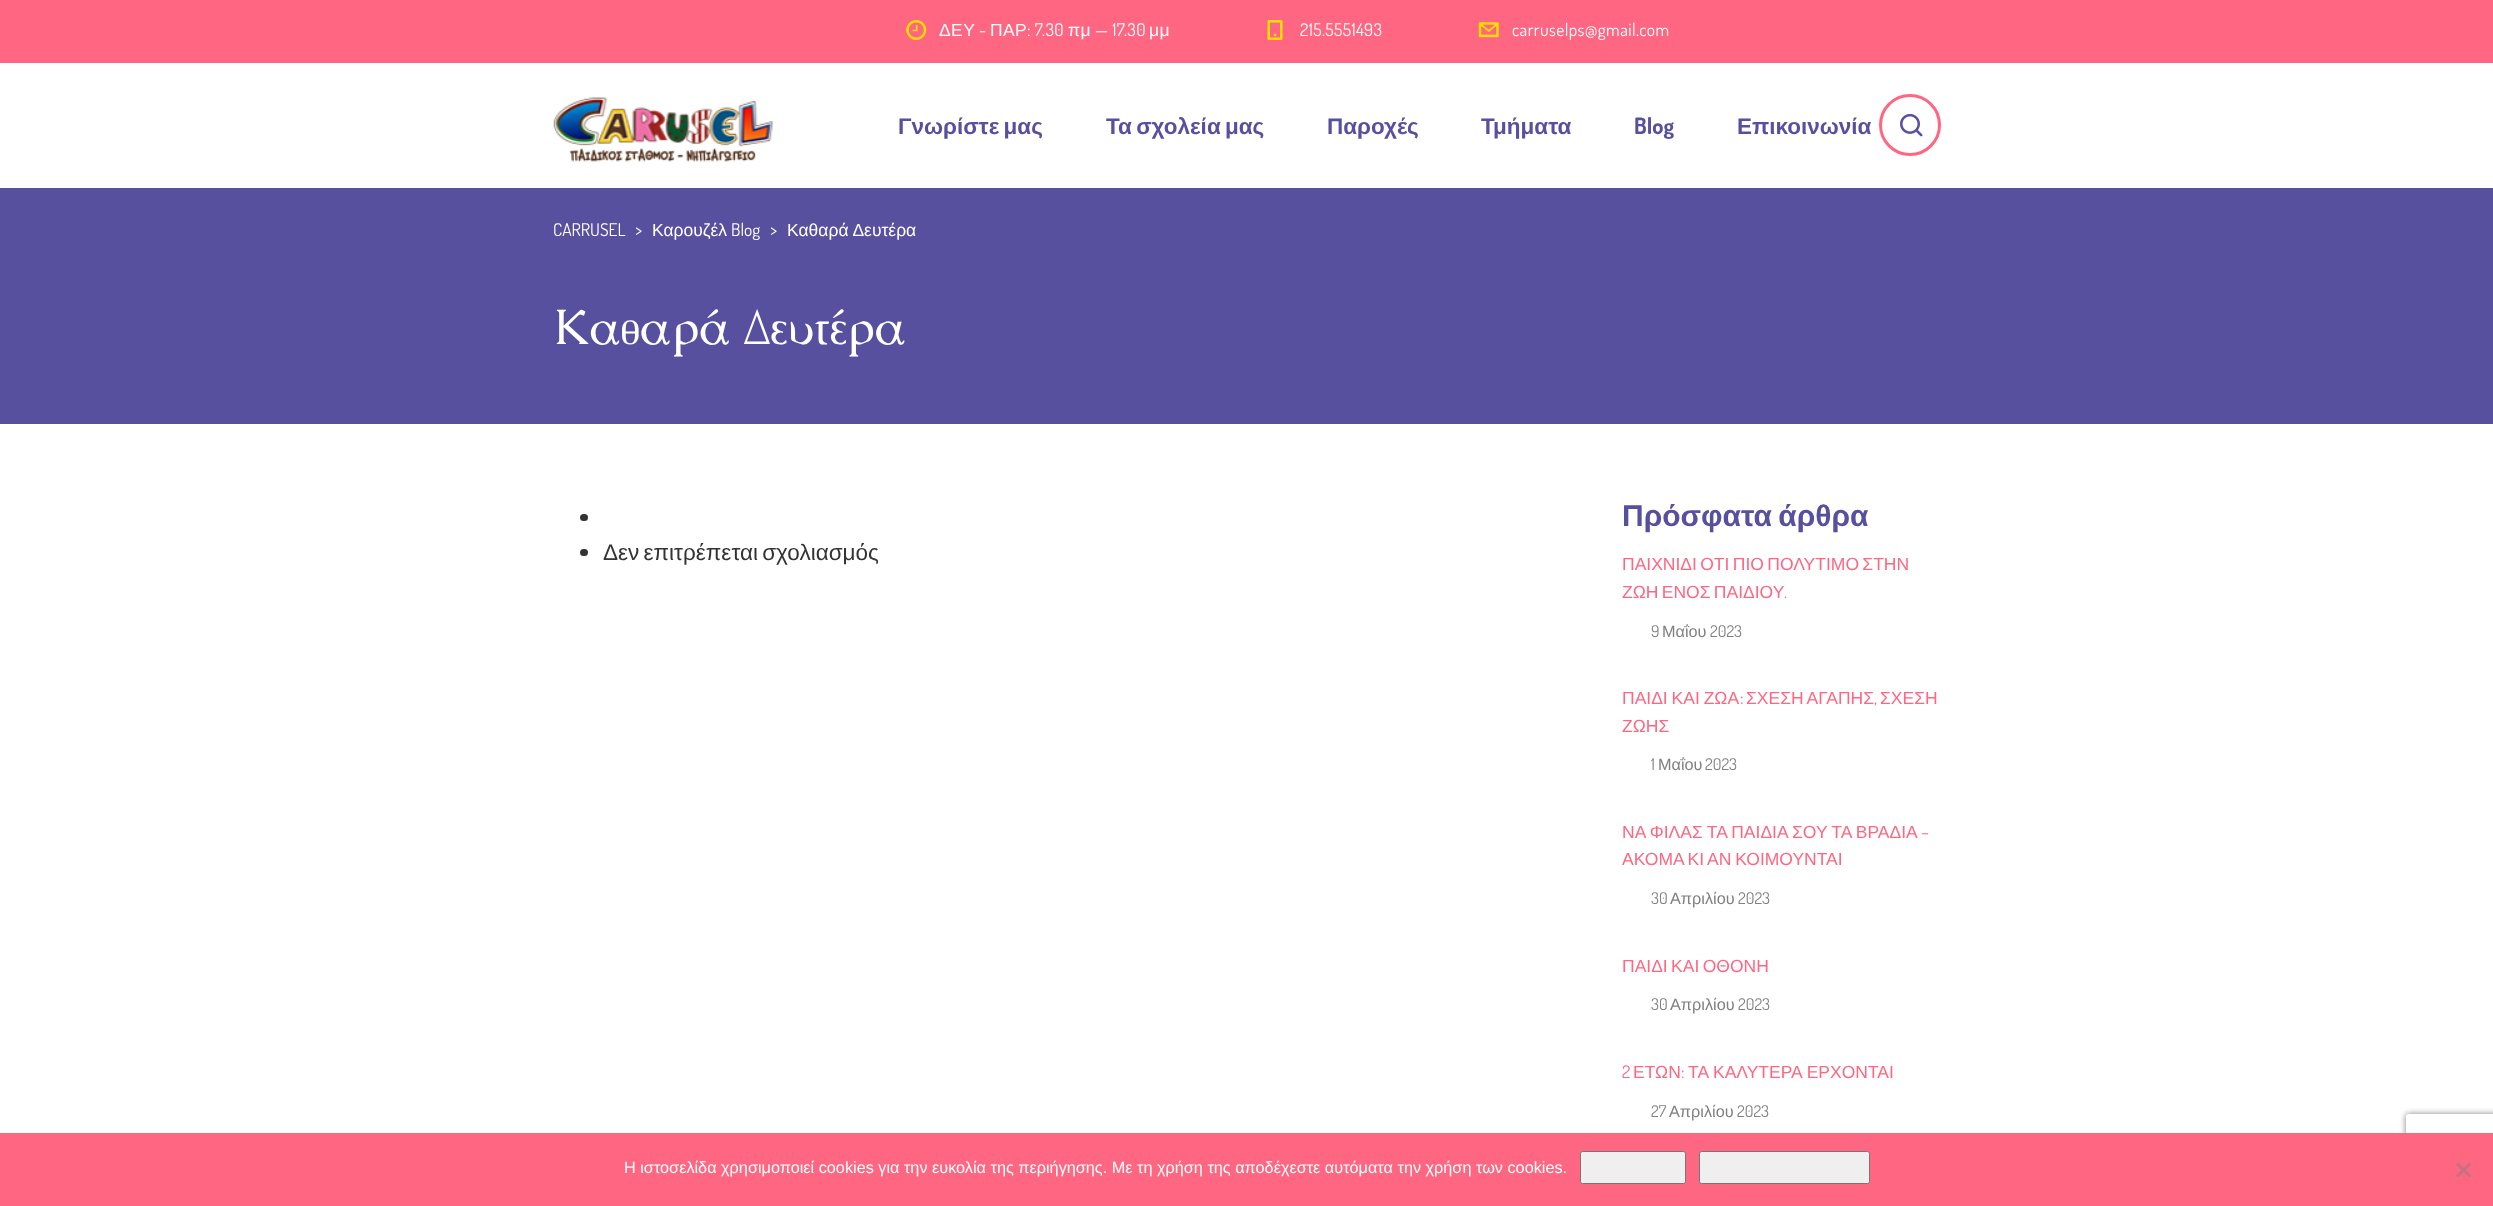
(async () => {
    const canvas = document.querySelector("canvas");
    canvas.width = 2493;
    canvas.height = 1206;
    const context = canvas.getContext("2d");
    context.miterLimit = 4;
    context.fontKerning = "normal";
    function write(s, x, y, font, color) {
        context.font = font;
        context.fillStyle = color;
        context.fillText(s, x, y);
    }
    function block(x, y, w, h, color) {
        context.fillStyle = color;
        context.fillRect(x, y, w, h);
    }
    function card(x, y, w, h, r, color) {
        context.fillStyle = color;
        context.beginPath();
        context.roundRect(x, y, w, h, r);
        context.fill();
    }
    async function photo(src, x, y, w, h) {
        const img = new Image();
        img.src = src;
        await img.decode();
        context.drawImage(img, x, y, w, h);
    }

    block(0, 0, 2493, 1206, "rgb(255, 255, 255)");
    block(0, 0, 2493, 63, "rgb(255, 102, 130)");
    await photo("media/1.png", 906, 20, 21, 20);
    context.letterSpacing = "0.4px";
    write("ΔΕΥ", 939, 36, "17.5px Liberation Sans", "rgb(255, 255, 255)");
    write("-", 979, 36, "17.5px Dosis", "rgb(255, 255, 255)");
    write("ΠΑΡ", 990, 36, "17.5px Liberation Sans", "rgb(255, 255, 255)");
    write(": 7.30", 1027, 36, "17.5px Dosis", "rgb(255, 255, 255)");
    write("πμ", 1068, 36, "17.5px Liberation Sans", "rgb(255, 255, 255)");
    write("— 17.30", 1095, 36, "17.5px Dosis", "rgb(255, 255, 255)");
    write("μμ", 1149, 36, "17.5px Liberation Sans", "rgb(255, 255, 255)");
    await photo("media/2.png", 1267, 20, 16, 20);
    write("215.5551493", 1300, 36, "17.5px Dosis", "rgb(255, 255, 255)");
    await photo("media/3.png", 1478, 22, 21, 16);
    write("carruselps@gmail.com", 1512, 36, "17.5px Dosis", "rgb(255, 255, 255)");
    await photo("media/4.png", 553, 97, 220, 65);
    context.letterSpacing = "0px";
    context.wordSpacing = "-2px";
    write("Γνωρίστε μας", 898, 134, "bold 22.5px Liberation Sans", "rgb(86, 80, 159)");
    write("Τα σχολεία μας", 1106, 134, "bold 22.5px Liberation Sans", "rgb(86, 80, 159)");
    context.wordSpacing = "0px";
    write("Παροχές", 1327, 134, "bold 22.5px Liberation Sans", "rgb(86, 80, 159)");
    write("Τμήματα", 1481, 134, "bold 22.5px Liberation Sans", "rgb(86, 80, 159)");
    write("Blog", 1634, 134, "bold 22.5px Dosis", "rgb(86, 80, 159)");
    write("Επικοινωνία", 1737, 134, "bold 22.5px Liberation Sans", "rgb(86, 80, 159)");
    context.beginPath();
    context.arc(1910, 125, 29.5, 0, Math.PI * 2);
    context.strokeStyle = "rgb(255, 102, 130)";
    context.lineWidth = 3;
    context.stroke();
    await photo("media/5.png", 1900, 113, 23, 24);
    block(0, 188, 2493, 236, "rgb(86, 80, 159)");
    write("CARRUSEL", 553, 236, "17.5px Dosis", "rgb(255, 255, 255)");
    write(">", 635, 236, "17.5px Dosis", "rgb(255, 255, 255)");
    write("Καρουζέλ", 652, 236, "17.5px Liberation Sans", "rgb(255, 255, 255)");
    write("Blog", 731, 236, "17.5px Dosis", "rgb(255, 255, 255)");
    write(">", 770, 236, "17.5px Dosis", "rgb(255, 255, 255)");
    write("Καθαρά Δευτέρα", 787, 236, "17.5px Liberation Sans", "rgb(255, 255, 255)");
    write("Καθαρά Δευτέρα", 553, 344, "50px Caudex", "rgb(255, 255, 255)");
    card(580, 514, 8, 7, 3.5, "rgb(51, 51, 51)");
    card(580, 549, 8, 7, 3.5, "rgb(51, 51, 51)");
    context.wordSpacing = "-2px";
    write("Δεν επιτρέπεται σχολιασμός", 603, 560, "22.5px Liberation Sans", "rgb(51, 51, 51)");
    write("Πρόσφατα άρθρα", 1622, 526, "bold 30px Liberation Sans", "rgb(86, 80, 159)");
    context.wordSpacing = "-1.5px";
    write("ΠΑΙΧΝΙΔΙ ΟΤΙ ΠΙΟ ΠΟΛΥΤΙΜΟ ΣΤΗΝ", 1622, 570, "17.5px Liberation Sans", "rgb(255, 102, 130)");
    write("ΖΩΗ ΕΝΟΣ ΠΑΙΔΙΟΥ", 1622, 598, "17.5px Liberation Sans", "rgb(255, 102, 130)");
    context.wordSpacing = "0px";
    write(".", 1784, 598, "17.5px Dosis", "rgb(255, 102, 130)");
    write("9", 1651, 637, "16.25px Dosis", "rgb(128, 128, 128)");
    write("Μαΐου", 1662, 637, "16.25px Liberation Sans", "rgb(128, 128, 128)");
    write("2023", 1710, 637, "16.25px Dosis", "rgb(128, 128, 128)");
    context.wordSpacing = "-1px";
    write("ΠΑΙΔΙ ΚΑΙ ΖΩΑ", 1622, 704, "17.5px Liberation Sans", "rgb(255, 102, 130)");
    context.wordSpacing = "0px";
    write(":", 1740, 704, "17.5px Dosis", "rgb(255, 102, 130)");
    context.wordSpacing = "-1px";
    write("ΣΧΕΣΗ ΑΓΑΠΗΣ", 1746, 704, "17.5px Liberation Sans", "rgb(255, 102, 130)");
    context.wordSpacing = "0px";
    write(",", 1874, 704, "17.5px Dosis", "rgb(255, 102, 130)");
    write("ΣΧΕΣΗ", 1880, 704, "17.5px Liberation Sans", "rgb(255, 102, 130)");
    write("ΖΩΗΣ", 1622, 732, "17.5px Liberation Sans", "rgb(255, 102, 130)");
    write("1", 1651, 770, "16.25px Dosis", "rgb(128, 128, 128)");
    write("Μαΐου", 1658, 770, "16.25px Liberation Sans", "rgb(128, 128, 128)");
    write("2023", 1705, 770, "16.25px Dosis", "rgb(128, 128, 128)");
    context.wordSpacing = "-0.5px";
    write("ΝΑ ΦΙΛΑΣ ΤΑ ΠΑΙΔΙΑ ΣΟΥ ΤΑ ΒΡΑΔΙΑ", 1622, 838, "17.5px Liberation Sans", "rgb(255, 102, 130)");
    context.wordSpacing = "0px";
    write("–", 1921, 838, "17.5px Dosis", "rgb(255, 102, 130)");
    context.wordSpacing = "-1px";
    write("ΑΚΟΜΑ ΚΙ ΑΝ ΚΟΙΜΟΥΝΤΑΙ", 1622, 865, "17.5px Liberation Sans", "rgb(255, 102, 130)");
    context.wordSpacing = "0px";
    write("30", 1651, 904, "16.25px Dosis", "rgb(128, 128, 128)");
    write("Απριλίου", 1670, 904, "16.25px Liberation Sans", "rgb(128, 128, 128)");
    write("2023", 1738, 904, "16.25px Dosis", "rgb(128, 128, 128)");
    context.wordSpacing = "-1.5px";
    write("ΠΑΙΔΙ ΚΑΙ ΟΘΟΝΗ", 1622, 972, "17.5px Liberation Sans", "rgb(255, 102, 130)");
    context.wordSpacing = "0px";
    write("30", 1651, 1010, "16.25px Dosis", "rgb(128, 128, 128)");
    write("Απριλίου", 1670, 1010, "16.25px Liberation Sans", "rgb(128, 128, 128)");
    write("2023", 1738, 1010, "16.25px Dosis", "rgb(128, 128, 128)");
    write("2", 1622, 1078, "17.5px Dosis", "rgb(255, 102, 130)");
    write("ΕΤΩΝ", 1633, 1078, "17.5px Liberation Sans", "rgb(255, 102, 130)");
    write(":", 1681, 1078, "17.5px Dosis", "rgb(255, 102, 130)");
    write("ΤΑ ΚΑΛΥΤΕΡΑ ΕΡΧΟΝΤΑΙ", 1688, 1078, "17.5px Liberation Sans", "rgb(255, 102, 130)");
    write("27", 1651, 1117, "16.25px Dosis", "rgb(128, 128, 128)");
    write("Απριλίου", 1669, 1117, "16.25px Liberation Sans", "rgb(128, 128, 128)");
    write("2023", 1737, 1117, "16.25px Dosis", "rgb(128, 128, 128)");
    context.save();
    context.beginPath();
    context.moveTo(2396, 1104);
    context.lineTo(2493, 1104);
    context.lineTo(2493, 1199);
    context.lineTo(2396, 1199);
    context.closePath();
    context.moveTo(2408.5, 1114);
    context.lineTo(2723.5, 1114);
    context.bezierCurveTo(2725, 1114, 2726, 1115, 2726, 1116.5);
    context.lineTo(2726, 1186.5);
    context.bezierCurveTo(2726, 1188, 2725, 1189, 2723.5, 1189);
    context.lineTo(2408.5, 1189);
    context.bezierCurveTo(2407, 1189, 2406, 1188, 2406, 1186.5);
    context.lineTo(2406, 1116.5);
    context.bezierCurveTo(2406, 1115, 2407, 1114, 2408.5, 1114);
    context.closePath();
    context.clip("evenodd");
    context.filter = "blur(3px)";
    context.beginPath();
    context.roundRect(2406, 1114, 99, 75, 2.5);
    context.fill();
    context.filter = "none";
    context.restore();
    block(0, 1133, 2493, 73, "rgb(255, 102, 130)");
    write("Η ιστοσελίδα χρησιμοποιεί cookies για την ευκολία της περιήγησης. Με τη χρήση της αποδέχεστε αυτόματα την χρήση των cookies.", 624, 1173, "16.25px Liberation Sans", "rgb(255, 255, 255)");
    context.fillStyle = "rgb(239, 239, 239)";
    context.beginPath();
    context.roundRect(1580.5, 1151.5, 105, 32, 2);
    context.fill();
    context.strokeStyle = "rgb(118, 118, 118)";
    context.lineWidth = 1;
    context.stroke();
    context.beginPath();
    context.roundRect(1699.5, 1151.5, 170, 32, 2);
    context.fill();
    context.stroke();
    context.fillStyle = "rgb(192, 115, 129)";
    context.beginPath();
    context.moveTo(2469.5, 1162.5);
    context.lineTo(2471.5, 1164.5);
    context.lineTo(2458, 1177.5);
    context.lineTo(2456, 1175.5);
    context.closePath();
    context.fill();
    context.beginPath();
    context.moveTo(2456, 1164.5);
    context.lineTo(2458, 1162.5);
    context.lineTo(2471.5, 1175.5);
    context.lineTo(2469.5, 1177.5);
    context.closePath();
    context.fill();
})();
